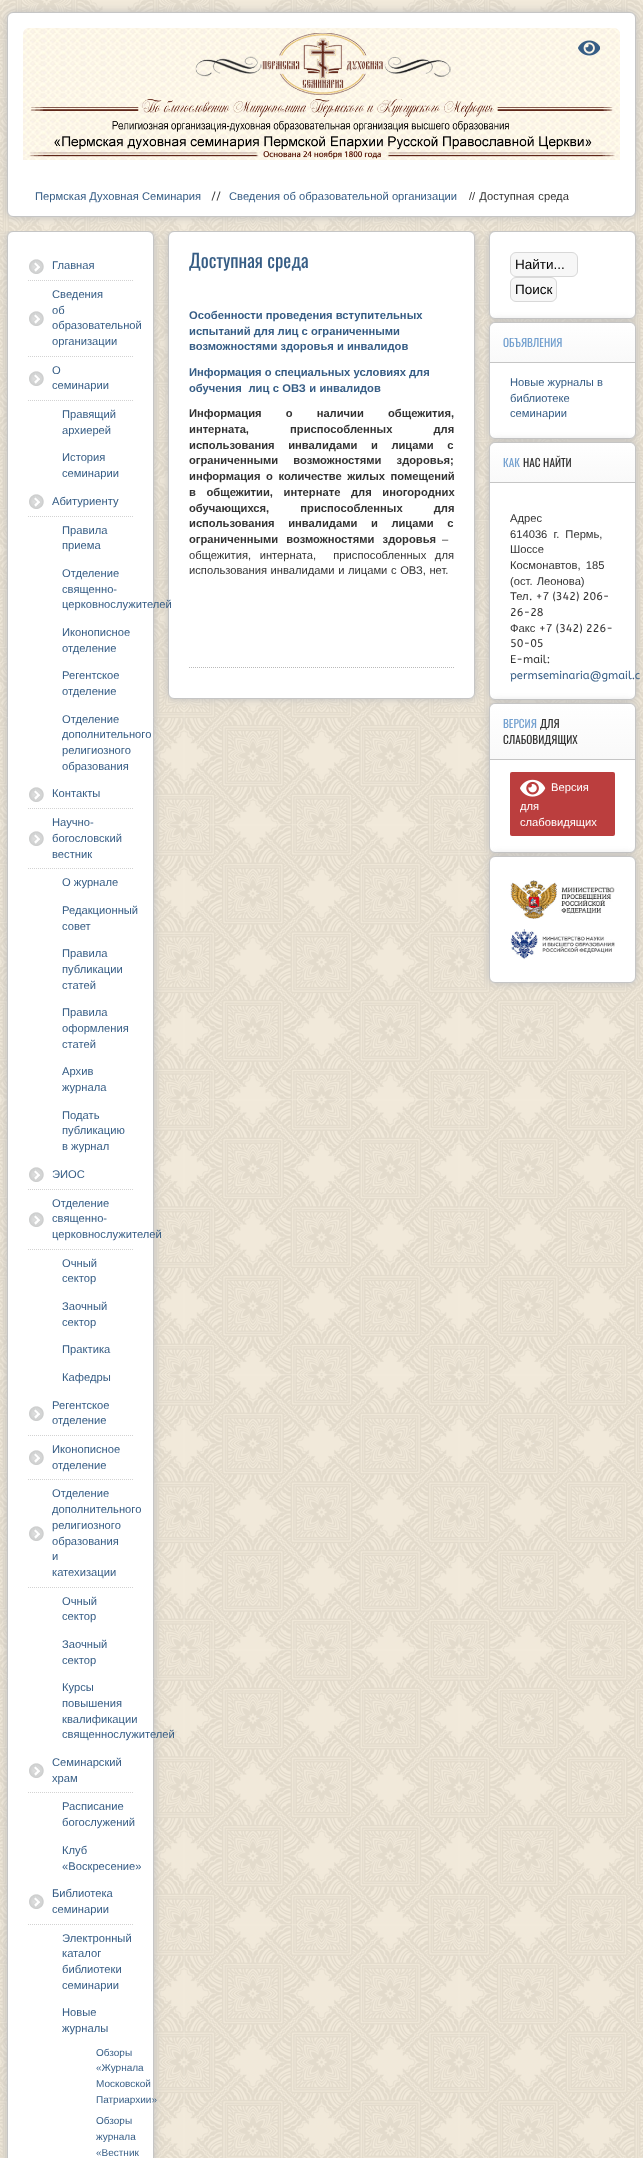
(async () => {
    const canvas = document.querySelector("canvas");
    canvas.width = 643;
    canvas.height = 2158;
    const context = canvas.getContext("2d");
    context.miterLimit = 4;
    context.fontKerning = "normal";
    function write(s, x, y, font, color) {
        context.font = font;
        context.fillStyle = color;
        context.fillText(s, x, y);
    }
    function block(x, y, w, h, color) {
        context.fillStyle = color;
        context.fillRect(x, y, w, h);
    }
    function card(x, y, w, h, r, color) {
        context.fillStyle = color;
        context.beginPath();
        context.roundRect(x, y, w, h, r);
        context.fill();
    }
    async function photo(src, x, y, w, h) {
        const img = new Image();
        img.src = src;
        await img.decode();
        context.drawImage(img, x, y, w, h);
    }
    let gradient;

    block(0, 0, 643, 2158, "rgb(255, 255, 255)");
    await photo("media/1.png", 0, 0, 643, 2158);
    context.fillStyle = "rgb(189, 189, 189)";
    context.filter = "blur(4px)";
    context.beginPath();
    context.roundRect(7, 12, 629, 205, 6);
    context.fill();
    context.filter = "none";
    context.fillStyle = "rgb(255, 255, 255)";
    context.beginPath();
    context.roundRect(7.5, 12.5, 628, 204, 5.5);
    context.fill();
    context.strokeStyle = "rgb(197, 197, 197)";
    context.stroke();
    await photo("media/2.png", 23, 28, 597, 132);
    await photo("media/3.png", 29, 33, 586, 126);
    await photo("media/4.png", 578, 40, 22, 16);
    write("Пермская Духовная Семинария", 35, 200, "11.2px Liberation Sans", "rgb(54, 93, 133)");
    write("//", 211, 200, "11.2px ABeeZee", "rgb(51, 51, 51)");
    write("Сведения об образовательной организации", 229, 200, "11.2px Liberation Sans", "rgb(54, 93, 133)");
    context.wordSpacing = "1px";
    write("// Доступная среда", 469, 200, "11.2px Liberation Sans", "rgb(51, 51, 51)");
    context.save();
    context.beginPath();
    context.rect(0, 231, 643, 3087);
    context.clip();
    context.fillStyle = "rgb(189, 189, 189)";
    context.filter = "blur(4px)";
    context.beginPath();
    context.roundRect(7, 231, 147, 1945, 6);
    context.fill();
    context.filter = "none";
    context.restore();
    context.fillStyle = "rgb(255, 255, 255)";
    context.beginPath();
    context.roundRect(7.5, 231.5, 146, 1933, 5.5);
    context.fill();
    context.stroke();
    await photo("media/5.png", 29, 259, 15, 15);
    context.beginPath();
    context.moveTo(28, 280.5);
    context.lineTo(133, 280.5);
    context.strokeStyle = "rgb(211, 211, 211)";
    context.setLineDash([1, 1]);
    context.stroke();
    context.wordSpacing = "0px";
    write("Главная", 52, 269, "11.2px Liberation Sans", "rgb(54, 93, 133)");
    await photo("media/5.png", 29, 311, 15, 15);
    context.beginPath();
    context.moveTo(28, 356.5);
    context.lineTo(133, 356.5);
    context.stroke();
    write("Сведения", 52, 298, "11.2px Liberation Sans", "rgb(54, 93, 133)");
    write("об", 52, 314, "11.2px Liberation Sans", "rgb(54, 93, 133)");
    write("образовательной", 52, 329, "11.2px Liberation Sans", "rgb(54, 93, 133)");
    write("организации", 52, 345, "11.2px Liberation Sans", "rgb(54, 93, 133)");
    await photo("media/5.png", 29, 371, 15, 15);
    context.beginPath();
    context.moveTo(28, 400.5);
    context.lineTo(133, 400.5);
    context.stroke();
    write("О", 52, 374, "11.2px Liberation Sans", "rgb(54, 93, 133)");
    write("семинарии", 52, 389, "11.2px Liberation Sans", "rgb(54, 93, 133)");
    write("Правящий", 62, 418, "11.2px Liberation Sans", "rgb(54, 93, 133)");
    write("архиерей", 62, 434, "11.2px Liberation Sans", "rgb(54, 93, 133)");
    write("История", 62, 461, "11.2px Liberation Sans", "rgb(54, 93, 133)");
    write("семинарии", 62, 477, "11.2px Liberation Sans", "rgb(54, 93, 133)");
    await photo("media/5.png", 29, 494, 15, 15);
    context.beginPath();
    context.moveTo(28, 516.5);
    context.lineTo(133, 516.5);
    context.stroke();
    write("Абитуриенту", 52, 505, "11.2px Liberation Sans", "rgb(54, 93, 133)");
    write("Правила", 62, 534, "11.2px Liberation Sans", "rgb(54, 93, 133)");
    write("приема", 62, 549, "11.2px Liberation Sans", "rgb(54, 93, 133)");
    write("Отделение", 62, 577, "11.2px Liberation Sans", "rgb(54, 93, 133)");
    write("священно-", 62, 593, "11.2px Liberation Sans", "rgb(54, 93, 133)");
    context.save();
    context.beginPath();
    context.rect(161, 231, 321, 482);
    context.clip();
    context.fillStyle = "rgb(189, 189, 189)";
    context.filter = "blur(4px)";
    context.beginPath();
    context.roundRect(168, 231, 307, 468, 6);
    context.fill();
    context.filter = "none";
    context.restore();
    context.fillStyle = "rgb(255, 255, 255)";
    context.beginPath();
    context.roundRect(168.5, 231.5, 306, 467, 5.5);
    context.fill();
    context.strokeStyle = "rgb(197, 197, 197)";
    context.setLineDash([]);
    context.stroke();
    write("церковнослужителей", 62, 608, "11.2px Liberation Sans", "rgb(54, 93, 133)");
    write("Иконописное", 62, 636, "11.2px Liberation Sans", "rgb(54, 93, 133)");
    write("отделение", 62, 652, "11.2px Liberation Sans", "rgb(54, 93, 133)");
    write("Регентское", 62, 679, "11.2px Liberation Sans", "rgb(54, 93, 133)");
    write("отделение", 62, 695, "11.2px Liberation Sans", "rgb(54, 93, 133)");
    write("Отделение", 62, 723, "11.2px Liberation Sans", "rgb(54, 93, 133)");
    write("дополнительного", 62, 738, "11.2px Liberation Sans", "rgb(54, 93, 133)");
    write("религиозного", 62, 754, "11.2px Liberation Sans", "rgb(54, 93, 133)");
    write("образования", 62, 770, "11.2px Liberation Sans", "rgb(54, 93, 133)");
    await photo("media/5.png", 29, 787, 15, 15);
    context.beginPath();
    context.moveTo(28, 808.5);
    context.lineTo(133, 808.5);
    context.strokeStyle = "rgb(211, 211, 211)";
    context.setLineDash([1, 1]);
    context.stroke();
    write("Контакты", 52, 797, "11.2px Liberation Sans", "rgb(54, 93, 133)");
    await photo("media/5.png", 29, 831, 15, 15);
    context.beginPath();
    context.moveTo(28, 868.5);
    context.lineTo(133, 868.5);
    context.stroke();
    write("Научно-", 52, 826, "11.2px Liberation Sans", "rgb(54, 93, 133)");
    write("богословский", 52, 842, "11.2px Liberation Sans", "rgb(54, 93, 133)");
    write("вестник", 52, 858, "11.2px Liberation Sans", "rgb(54, 93, 133)");
    write("О журнале", 62, 886, "11.2px Liberation Sans", "rgb(54, 93, 133)");
    write("Редакционный", 62, 914, "11.2px Liberation Sans", "rgb(54, 93, 133)");
    write("совет", 62, 930, "11.2px Liberation Sans", "rgb(54, 93, 133)");
    write("Правила", 62, 957, "11.2px Liberation Sans", "rgb(54, 93, 133)");
    write("публикации", 62, 973, "11.2px Liberation Sans", "rgb(54, 93, 133)");
    write("статей", 62, 989, "11.2px Liberation Sans", "rgb(54, 93, 133)");
    write("Правила", 62, 1016, "11.2px Liberation Sans", "rgb(54, 93, 133)");
    write("оформления", 62, 1032, "11.2px Liberation Sans", "rgb(54, 93, 133)");
    write("статей", 62, 1048, "11.2px Liberation Sans", "rgb(54, 93, 133)");
    write("Архив", 62, 1075, "11.2px Liberation Sans", "rgb(54, 93, 133)");
    write("журнала", 62, 1091, "11.2px Liberation Sans", "rgb(54, 93, 133)");
    write("Подать", 62, 1119, "11.2px Liberation Sans", "rgb(54, 93, 133)");
    write("публикацию", 62, 1134, "11.2px Liberation Sans", "rgb(54, 93, 133)");
    write("в журнал", 62, 1150, "11.2px Liberation Sans", "rgb(54, 93, 133)");
    await photo("media/5.png", 29, 1167, 15, 15);
    context.beginPath();
    context.moveTo(28, 1189.5);
    context.lineTo(133, 1189.5);
    context.stroke();
    write("ЭИОС", 52, 1178, "11.2px Liberation Sans", "rgb(54, 93, 133)");
    await photo("media/5.png", 29, 1212, 15, 15);
    context.beginPath();
    context.moveTo(28, 1249.5);
    context.lineTo(133, 1249.5);
    context.stroke();
    write("Отделение", 52, 1207, "11.2px Liberation Sans", "rgb(54, 93, 133)");
    write("священно-", 52, 1222, "11.2px Liberation Sans", "rgb(54, 93, 133)");
    write("церковнослужителей", 52, 1238, "11.2px Liberation Sans", "rgb(54, 93, 133)");
    write("Очный", 62, 1267, "11.2px Liberation Sans", "rgb(54, 93, 133)");
    write("сектор", 62, 1282, "11.2px Liberation Sans", "rgb(54, 93, 133)");
    write("Заочный", 62, 1310, "11.2px Liberation Sans", "rgb(54, 93, 133)");
    write("сектор", 62, 1326, "11.2px Liberation Sans", "rgb(54, 93, 133)");
    write("Практика", 62, 1353, "11.2px Liberation Sans", "rgb(54, 93, 133)");
    write("Кафедры", 62, 1381, "11.2px Liberation Sans", "rgb(54, 93, 133)");
    await photo("media/5.png", 29, 1406, 15, 15);
    context.beginPath();
    context.moveTo(28, 1435.5);
    context.lineTo(133, 1435.5);
    context.stroke();
    write("Регентское", 52, 1409, "11.2px Liberation Sans", "rgb(54, 93, 133)");
    write("отделение", 52, 1424, "11.2px Liberation Sans", "rgb(54, 93, 133)");
    await photo("media/5.png", 29, 1450, 15, 15);
    context.beginPath();
    context.moveTo(28, 1479.5);
    context.lineTo(133, 1479.5);
    context.stroke();
    write("Иконописное", 52, 1453, "11.2px Liberation Sans", "rgb(54, 93, 133)");
    write("отделение", 52, 1469, "11.2px Liberation Sans", "rgb(54, 93, 133)");
    await photo("media/5.png", 29, 1526, 15, 15);
    context.beginPath();
    context.moveTo(28, 1587.5);
    context.lineTo(133, 1587.5);
    context.stroke();
    write("Отделение", 52, 1497, "11.2px Liberation Sans", "rgb(54, 93, 133)");
    write("дополнительного", 52, 1513, "11.2px Liberation Sans", "rgb(54, 93, 133)");
    write("религиозного", 52, 1529, "11.2px Liberation Sans", "rgb(54, 93, 133)");
    write("образования", 52, 1545, "11.2px Liberation Sans", "rgb(54, 93, 133)");
    write("и", 52, 1560, "11.2px Liberation Sans", "rgb(54, 93, 133)");
    write("катехизации", 52, 1576, "11.2px Liberation Sans", "rgb(54, 93, 133)");
    write("Очный", 62, 1605, "11.2px Liberation Sans", "rgb(54, 93, 133)");
    write("сектор", 62, 1620, "11.2px Liberation Sans", "rgb(54, 93, 133)");
    write("Заочный", 62, 1648, "11.2px Liberation Sans", "rgb(54, 93, 133)");
    write("сектор", 62, 1664, "11.2px Liberation Sans", "rgb(54, 93, 133)");
    write("Курсы", 62, 1691, "11.2px Liberation Sans", "rgb(54, 93, 133)");
    write("повышения", 62, 1707, "11.2px Liberation Sans", "rgb(54, 93, 133)");
    write("квалификации", 62, 1723, "11.2px Liberation Sans", "rgb(54, 93, 133)");
    write("священнослужителей", 62, 1738, "11.2px Liberation Sans", "rgb(54, 93, 133)");
    await photo("media/5.png", 29, 1763, 15, 15);
    context.beginPath();
    context.moveTo(28, 1792.5);
    context.lineTo(133, 1792.5);
    context.stroke();
    write("Семинарский", 52, 1766, "11.2px Liberation Sans", "rgb(54, 93, 133)");
    write("храм", 52, 1782, "11.2px Liberation Sans", "rgb(54, 93, 133)");
    write("Расписание", 62, 1810, "11.2px Liberation Sans", "rgb(54, 93, 133)");
    write("богослужений", 62, 1826, "11.2px Liberation Sans", "rgb(54, 93, 133)");
    write("Клуб", 62, 1854, "11.2px Liberation Sans", "rgb(54, 93, 133)");
    write("«Воскресение»", 62, 1870, "11.2px Liberation Sans", "rgb(54, 93, 133)");
    await photo("media/5.png", 29, 1894, 15, 15);
    context.beginPath();
    context.moveTo(28, 1924.5);
    context.lineTo(133, 1924.5);
    context.stroke();
    write("Библиотека", 52, 1897, "11.2px Liberation Sans", "rgb(54, 93, 133)");
    write("семинарии", 52, 1913, "11.2px Liberation Sans", "rgb(54, 93, 133)");
    write("Электронный", 62, 1942, "11.2px Liberation Sans", "rgb(54, 93, 133)");
    write("каталог", 62, 1957, "11.2px Liberation Sans", "rgb(54, 93, 133)");
    write("библиотеки", 62, 1973, "11.2px Liberation Sans", "rgb(54, 93, 133)");
    write("семинарии", 62, 1989, "11.2px Liberation Sans", "rgb(54, 93, 133)");
    write("Новые", 62, 2016, "11.2px Liberation Sans", "rgb(54, 93, 133)");
    write("журналы", 62, 2032, "11.2px Liberation Sans", "rgb(54, 93, 133)");
    write("Обзоры", 96, 2056, "10px Liberation Sans", "rgb(54, 93, 133)");
    write("«Журнала", 96, 2071, "10px Liberation Sans", "rgb(54, 93, 133)");
    write("Московской", 96, 2087, "10px Liberation Sans", "rgb(54, 93, 133)");
    write("Патриархии»", 96, 2103, "10px Liberation Sans", "rgb(54, 93, 133)");
    write("Обзоры", 96, 2124, "10px Liberation Sans", "rgb(54, 93, 133)");
    write("журнала", 96, 2140, "10px Liberation Sans", "rgb(54, 93, 133)");
    write("«Вестник", 96, 2156, "10px Liberation Sans", "rgb(54, 93, 133)");
    write("Доступная среда", 189, 268, "18.75px Oswald", "rgb(54, 93, 133)");
    write("Особенности проведения вступительных", 189, 319, "bold 11.2px Liberation Sans", "rgb(54, 93, 133)");
    write("испытаний для лиц с ограниченными", 189, 335, "bold 11.2px Liberation Sans", "rgb(54, 93, 133)");
    write("возможностями здоровья и инвалидов", 189, 350, "bold 11.2px Liberation Sans", "rgb(54, 93, 133)");
    write("Информация о специальных условиях для", 189, 376, "bold 11.2px Liberation Sans", "rgb(54, 93, 133)");
    context.wordSpacing = "0.25px";
    write("обучения  лиц с ОВЗ и инвалидов", 189, 392, "bold 11.2px Liberation Sans", "rgb(54, 93, 133)");
    context.wordSpacing = "21px";
    write("Информация о наличии общежития,", 189, 417, "bold 11.2px Liberation Sans", "rgb(51, 51, 51)");
    context.wordSpacing = "38px";
    write("интерната, приспособленных для", 189, 433, "bold 11.2px Liberation Sans", "rgb(51, 51, 51)");
    context.wordSpacing = "10.5px";
    write("использования инвалидами и лицами с", 189, 449, "bold 11.2px Liberation Sans", "rgb(51, 51, 51)");
    context.wordSpacing = "12px";
    write("ограниченными возможностями здоровья;", 189, 464, "bold 11.2px Liberation Sans", "rgb(51, 51, 51)");
    context.wordSpacing = "2.5px";
    write("информация о количестве жилых помещений", 189, 480, "bold 11.2px Liberation Sans", "rgb(51, 51, 51)");
    context.wordSpacing = "7.5px";
    write("в общежитии, интернате для иногородних", 189, 496, "bold 11.2px Liberation Sans", "rgb(51, 51, 51)");
    context.wordSpacing = "28px";
    write("обучающихся, приспособленных для", 189, 512, "bold 11.2px Liberation Sans", "rgb(51, 51, 51)");
    context.wordSpacing = "10.5px";
    write("использования инвалидами и лицами с", 189, 527, "bold 11.2px Liberation Sans", "rgb(51, 51, 51)");
    context.wordSpacing = "5px";
    write("ограниченными возможностями здоровья", 189, 543, "bold 11.2px Liberation Sans", "rgb(51, 51, 51)");
    context.wordSpacing = "0px";
    write("–", 442, 543, "11.2px Liberation Sans", "rgb(51, 51, 51)");
    context.wordSpacing = "5.5px";
    write("общежития, интерната,  приспособленных для", 189, 559, "11.2px Liberation Sans", "rgb(51, 51, 51)");
    context.wordSpacing = "0.5px";
    write("использования инвалидами и лицами с ОВЗ, нет.", 189, 574, "11.2px Liberation Sans", "rgb(51, 51, 51)");
    context.beginPath();
    context.moveTo(189, 667.5);
    context.lineTo(454, 667.5);
    context.strokeStyle = "rgb(186, 186, 186)";
    context.stroke();
    context.save();
    context.beginPath();
    context.rect(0, 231, 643, 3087);
    context.clip();
    context.fillStyle = "rgb(189, 189, 189)";
    context.filter = "blur(4px)";
    context.beginPath();
    context.roundRect(489, 231, 147, 88, 6);
    context.fill();
    context.filter = "none";
    context.restore();
    context.fillStyle = "rgb(255, 255, 255)";
    context.beginPath();
    context.roundRect(489.5, 231.5, 146, 87, 5.5);
    context.fill();
    context.strokeStyle = "rgb(197, 197, 197)";
    context.setLineDash([]);
    context.stroke();
    context.fillStyle = "rgb(247, 247, 247)";
    context.beginPath();
    context.roundRect(510.5, 252.5, 67, 24, 5.5);
    context.fill();
    context.strokeStyle = "rgb(216, 216, 216)";
    context.stroke();
    context.wordSpacing = "0px";
    write("Найти...", 515, 269, "13.5px Liberation Sans", "rgb(0, 0, 0)");
    context.fillStyle = "rgb(247, 247, 247)";
    context.beginPath();
    context.roundRect(510.5, 277.5, 46, 24, 5.5);
    context.fill();
    context.stroke();
    write("Поиск", 515, 294, "13.5px Liberation Sans", "rgb(0, 0, 0)");
    context.fillStyle = "rgb(189, 189, 189)";
    context.filter = "blur(4px)";
    context.beginPath();
    context.roundRect(489, 322, 147, 117, 6);
    context.fill();
    context.filter = "none";
    context.fillStyle = "rgb(255, 255, 255)";
    context.beginPath();
    context.roundRect(489.5, 322.5, 146, 116, 5.5);
    context.fill();
    context.strokeStyle = "rgb(197, 197, 197)";
    context.stroke();
    gradient = context.createLinearGradient(563, 323, 563, 362);
    gradient.addColorStop(0, "rgb(255, 255, 255)");
    gradient.addColorStop(1, "rgb(249, 249, 249)");
    context.fillStyle = gradient;
    context.beginPath();
    context.roundRect(490, 323, 145, 39, [6, 6, 0, 0]);
    context.fill();
    block(490, 362, 145, 1, "rgb(197, 197, 197)");
    write("ОБЪЯВЛЕНИЯ", 503, 347, "11.2px Oswald", "rgb(115, 160, 207)");
    write("Новые журналы в", 510, 386, "11.2px Liberation Sans", "rgb(54, 93, 133)");
    write("библиотеке", 510, 402, "11.2px Liberation Sans", "rgb(54, 93, 133)");
    write("семинарии", 510, 417, "11.2px Liberation Sans", "rgb(54, 93, 133)");
    context.fillStyle = "rgb(189, 189, 189)";
    context.filter = "blur(4px)";
    context.beginPath();
    context.roundRect(489, 442, 147, 258, 6);
    context.fill();
    context.filter = "none";
    context.fillStyle = "rgb(255, 255, 255)";
    context.beginPath();
    context.roundRect(489.5, 442.5, 146, 257, 5.5);
    context.fill();
    context.stroke();
    gradient = context.createLinearGradient(563, 443, 563, 482);
    gradient.addColorStop(0, "rgb(255, 255, 255)");
    gradient.addColorStop(1, "rgb(249, 249, 249)");
    context.fillStyle = gradient;
    context.beginPath();
    context.roundRect(490, 443, 145, 39, [6, 6, 0, 0]);
    context.fill();
    block(490, 482, 145, 1, "rgb(197, 197, 197)");
    write("КАК", 503, 467, "11.2px Oswald", "rgb(115, 160, 207)");
    write("НАС НАЙТИ", 523, 467, "11.2px Oswald", "rgb(51, 51, 51)");
    write("Адрес", 510, 522, "11.2px Liberation Sans", "rgb(51, 51, 51)");
    context.wordSpacing = "3px";
    write("614036 г. Пермь,", 510, 538, "11.2px Liberation Sans", "rgb(51, 51, 51)");
    context.wordSpacing = "0px";
    write("Шоссе", 510, 553, "11.2px Liberation Sans", "rgb(51, 51, 51)");
    context.wordSpacing = "2px";
    write("Космонавтов, 185", 510, 569, "11.2px Liberation Sans", "rgb(51, 51, 51)");
    context.wordSpacing = "1px";
    write("(ост. Леонова)", 510, 585, "11.2px Liberation Sans", "rgb(51, 51, 51)");
    context.wordSpacing = "0px";
    write("Тел", 510, 600, "11.2px Liberation Sans", "rgb(51, 51, 51)");
    write(". +7 (342) 206-", 529, 600, "11.2px ABeeZee", "rgb(51, 51, 51)");
    write("26-28", 510, 616, "11.2px ABeeZee", "rgb(51, 51, 51)");
    write("Факс", 510, 632, "11.2px Liberation Sans", "rgb(51, 51, 51)");
    write("+7 (342) 226-", 539, 632, "11.2px ABeeZee", "rgb(51, 51, 51)");
    write("50-05", 510, 647, "11.2px ABeeZee", "rgb(51, 51, 51)");
    write("E-mail:", 510, 663, "11.2px ABeeZee", "rgb(51, 51, 51)");
    write("permseminaria@gmail.c", 510, 679, "11.2px ABeeZee", "rgb(54, 93, 133)");
    context.fillStyle = "rgb(189, 189, 189)";
    context.filter = "blur(4px)";
    context.beginPath();
    context.roundRect(489, 703, 147, 150, 6);
    context.fill();
    context.filter = "none";
    context.fillStyle = "rgb(255, 255, 255)";
    context.beginPath();
    context.roundRect(489.5, 703.5, 146, 149, 5.5);
    context.fill();
    context.stroke();
    gradient = context.createLinearGradient(563, 704, 563, 759);
    gradient.addColorStop(0, "rgb(255, 255, 255)");
    gradient.addColorStop(1, "rgb(249, 249, 249)");
    context.fillStyle = gradient;
    context.beginPath();
    context.roundRect(490, 704, 145, 55, [6, 6, 0, 0]);
    context.fill();
    block(490, 759, 145, 1, "rgb(197, 197, 197)");
    write("ВЕРСИЯ", 503, 728, "11.2px Oswald", "rgb(115, 160, 207)");
    write("ДЛЯ", 540, 728, "11.2px Oswald", "rgb(51, 51, 51)");
    write("СЛАБОВИДЯЩИХ", 503, 744, "11.2px Oswald", "rgb(51, 51, 51)");
    card(510, 772, 105, 64, 2, "rgb(187, 62, 62)");
    await photo("media/6.png", 520, 779, 26, 18);
    write("Версия", 551, 791, "11.2px Liberation Sans", "rgb(255, 255, 255)");
    write("для", 520, 810, "11.2px Liberation Sans", "rgb(255, 255, 255)");
    write("слабовидящих", 520, 826, "11.2px Liberation Sans", "rgb(255, 255, 255)");
    context.fillStyle = "rgb(189, 189, 189)";
    context.filter = "blur(4px)";
    context.beginPath();
    context.roundRect(489, 856, 147, 127, 6);
    context.fill();
    context.filter = "none";
    context.fillStyle = "rgb(255, 255, 255)";
    context.beginPath();
    context.roundRect(489.5, 856.5, 146, 126, 5.5);
    context.fill();
    context.stroke();
    await photo("media/7.png", 510, 880, 105, 39);
    await photo("media/8.png", 510, 929, 105, 30);
})();
